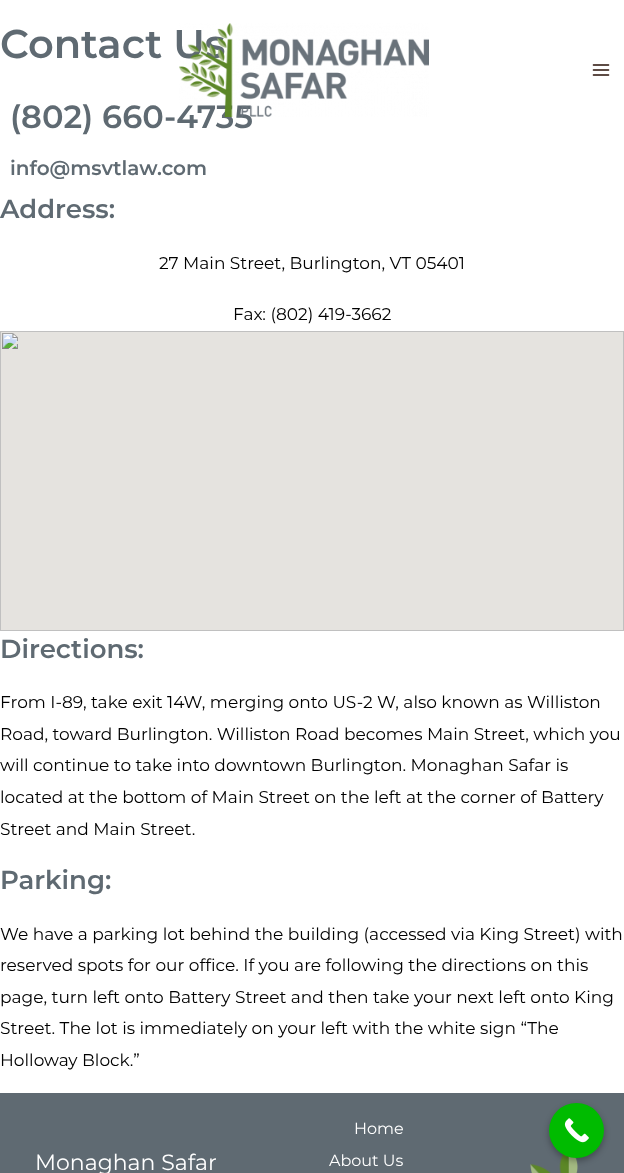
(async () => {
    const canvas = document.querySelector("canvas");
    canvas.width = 624;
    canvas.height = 1173;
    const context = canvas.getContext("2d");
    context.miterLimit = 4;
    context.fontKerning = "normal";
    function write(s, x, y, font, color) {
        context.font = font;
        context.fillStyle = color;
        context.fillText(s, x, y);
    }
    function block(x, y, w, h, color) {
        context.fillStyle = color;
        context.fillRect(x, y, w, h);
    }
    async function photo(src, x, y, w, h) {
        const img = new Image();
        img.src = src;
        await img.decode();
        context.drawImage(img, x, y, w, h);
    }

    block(0, 0, 624, 1173, "rgb(255, 255, 255)");
    write("Contact Us", 0, 58, "600 40px Montserrat", "rgb(95, 106, 114)");
    write("(802) 660-4735", 10, 128, "600 32px Montserrat", "rgb(95, 106, 114)");
    await photo("media/1.png", 179, 23, 250, 94);
    await photo("media/2.png", 592, 64, 18, 12);
    write("info@msvtlaw.com", 10, 175, "600 20px Montserrat", "rgb(95, 106, 114)");
    write("Address:", 0, 218, "600 26px Montserrat", "rgb(95, 106, 114)");
    write("27 Main Street, Burlington, VT 05401", 159, 269, "17px Montserrat", "rgb(0, 0, 0)");
    write("Fax: (802) 419-3662", 233, 320, "17px Montserrat", "rgb(0, 0, 0)");
    await photo("media/3.png", 0, 331, 624, 300);
    write("Directions:", 0, 658, "600 26px Montserrat", "rgb(95, 106, 114)");
    write("From I-89, take exit 14W, merging onto US-2 W, also known as Williston", 0, 708, "17px Montserrat", "rgb(0, 0, 0)");
    write("Road, toward Burlington. Williston Road becomes Main Street, which you", 0, 740, "17px Montserrat", "rgb(0, 0, 0)");
    write("will continue to take into downtown Burlington. Monaghan Safar is", 0, 771, "17px Montserrat", "rgb(0, 0, 0)");
    write("located at the bottom of Main Street on the left at the corner of Battery", 0, 803, "17px Montserrat", "rgb(0, 0, 0)");
    write("Street and Main Street.", 0, 835, "17px Montserrat", "rgb(0, 0, 0)");
    write("Parking:", 0, 889, "600 26px Montserrat", "rgb(95, 106, 114)");
    write("We have a parking lot behind the building (accessed via King Street) with", 0, 940, "17px Montserrat", "rgb(0, 0, 0)");
    write("reserved spots for our office. If you are following the directions on this", 0, 971, "17px Montserrat", "rgb(0, 0, 0)");
    write("page, turn left onto Battery Street and then take your next left onto King", 0, 1003, "17px Montserrat", "rgb(0, 0, 0)");
    write("Street. The lot is immediately on your left with the white sign “The", 0, 1034, "17px Montserrat", "rgb(0, 0, 0)");
    write("Holloway Block.”", 0, 1066, "17px Montserrat", "rgb(0, 0, 0)");
    block(0, 1093, 624, 80, "rgb(95, 106, 114)");
    write("Monaghan Safar", 35, 1170, "22px Montserrat", "rgb(255, 255, 255)");
    write("Home", 354, 1134, "16px Montserrat", "rgb(255, 255, 255)");
    write("About Us", 329, 1166, "16px Montserrat", "rgb(255, 255, 255)");
    await photo("media/4.png", 530, 1154, 48, 19);
    context.fillStyle = "rgba(0, 0, 0, 0.3)";
    context.filter = "blur(3px)";
    context.beginPath();
    context.roundRect(549, 1106, 55, 55, 27.5);
    context.fill();
    context.filter = "none";
    context.fillStyle = "rgb(0, 187, 0)";
    context.beginPath();
    context.arc(576.5, 1130.5, 27.5, 0, Math.PI * 2);
    context.fill();
    await photo("media/5.png", 564, 1118, 25, 25);
})();
